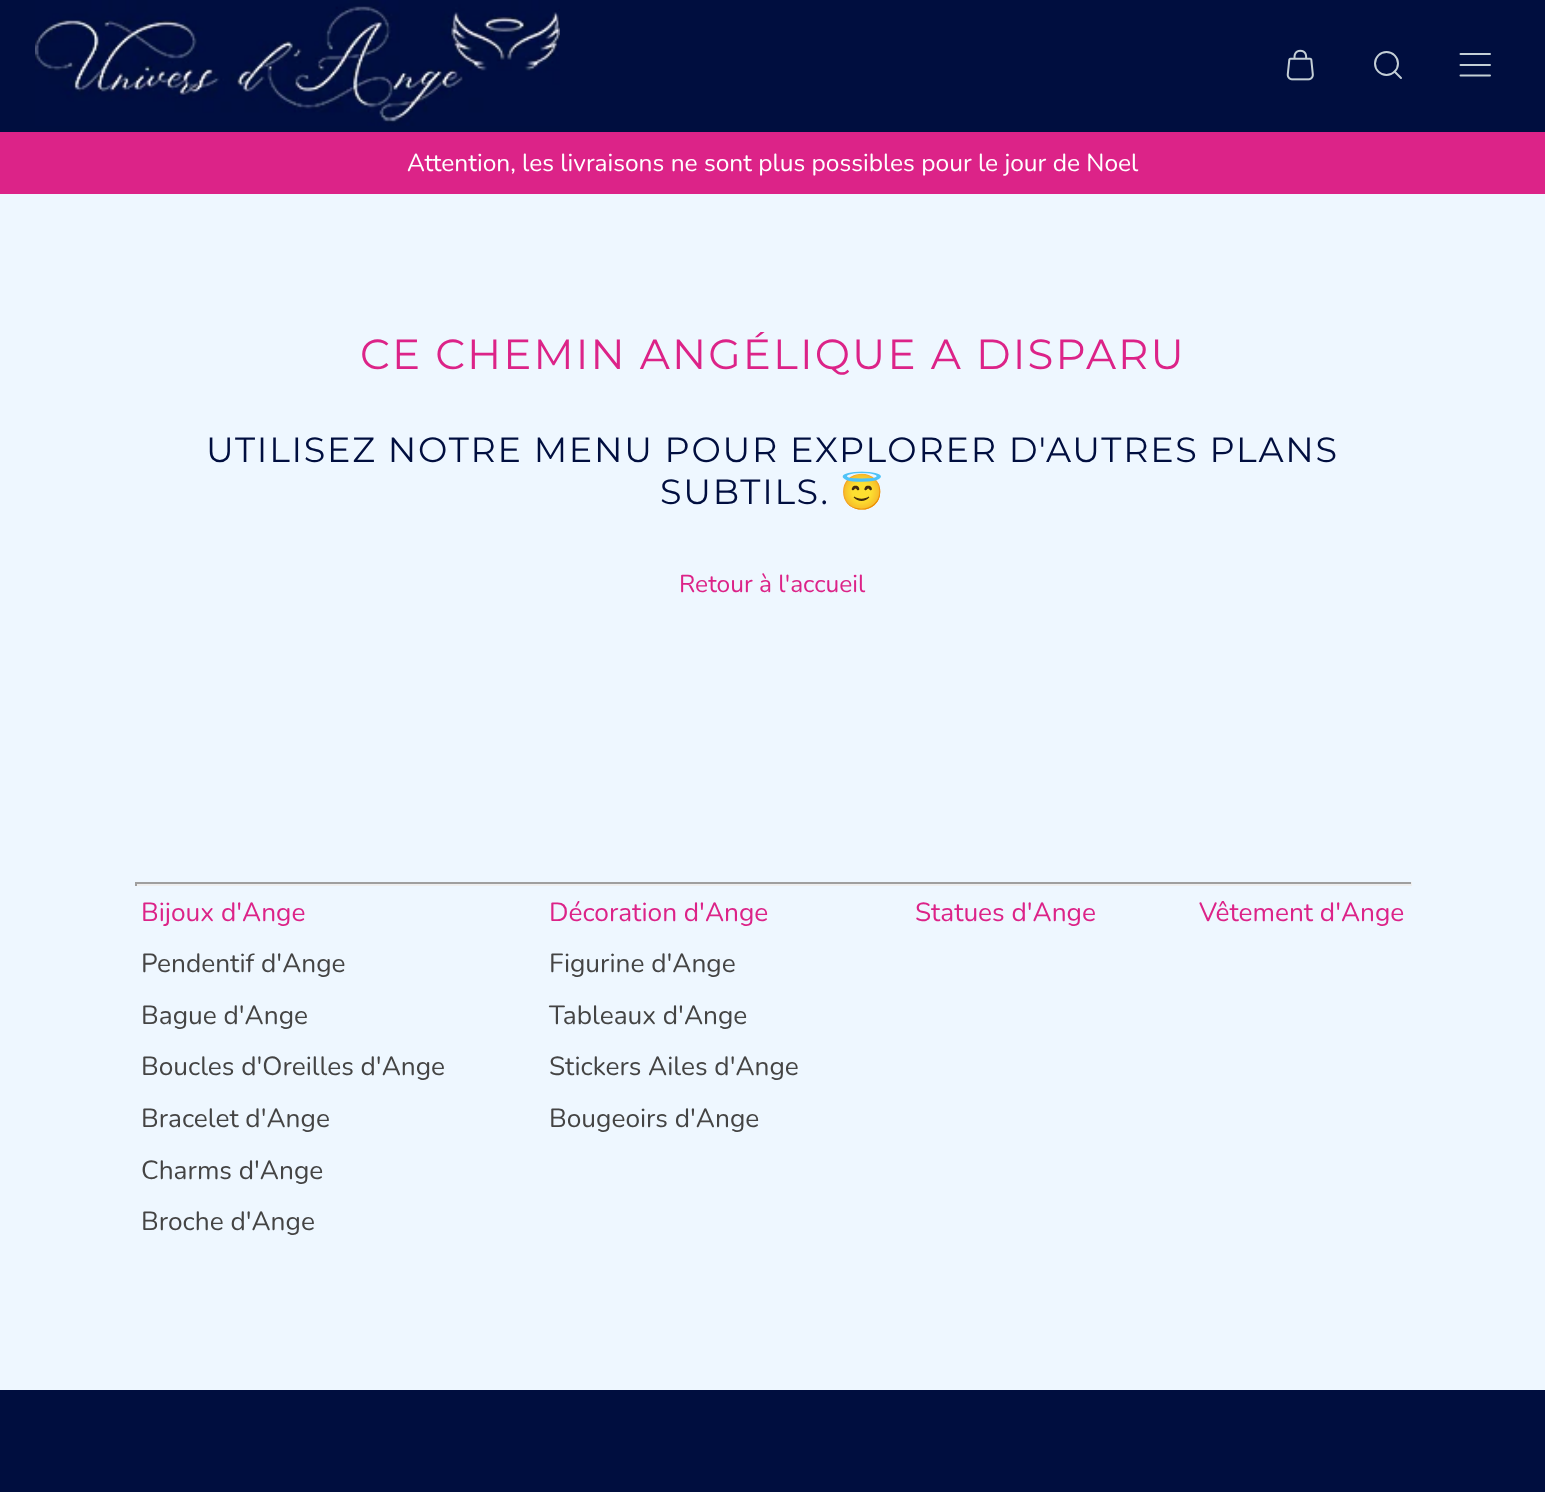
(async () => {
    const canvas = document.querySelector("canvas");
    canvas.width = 1545;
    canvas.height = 1492;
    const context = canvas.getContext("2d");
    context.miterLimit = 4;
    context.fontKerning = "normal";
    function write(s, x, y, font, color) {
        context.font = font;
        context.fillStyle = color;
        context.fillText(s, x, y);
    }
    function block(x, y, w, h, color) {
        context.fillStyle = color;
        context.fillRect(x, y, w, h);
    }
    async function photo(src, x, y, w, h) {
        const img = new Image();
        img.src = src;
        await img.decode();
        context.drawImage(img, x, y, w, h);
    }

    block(0, 0, 1545, 1492, "rgb(238, 247, 255)");
    block(0, 0, 1545, 132, "rgb(0, 14, 63)");
    await photo("media/1.png", 35, 0, 525, 126);
    await photo("media/2.png", 1286, 49, 28, 32);
    context.beginPath();
    context.arc(1386.5, 63.5, 11.5, 0, Math.PI * 2);
    context.strokeStyle = "rgb(196, 207, 214)";
    context.lineWidth = 2;
    context.stroke();
    context.beginPath();
    context.moveTo(1401, 78);
    context.lineTo(1394.5, 71.5);
    context.lineCap = "round";
    context.lineJoin = "round";
    context.stroke();
    context.beginPath();
    context.moveTo(1460.5, 54);
    context.lineTo(1490, 54);
    context.closePath();
    context.moveTo(1460.5, 75.5);
    context.lineTo(1490, 75.5);
    context.closePath();
    context.moveTo(1460.5, 65);
    context.lineTo(1490, 65);
    context.closePath();
    context.stroke();
    block(0, 132, 1545, 62, "rgb(220, 35, 136)");
    write("Attention, les livraisons ne sont plus possibles pour le jour de Noel", 407, 171, "24.5px Nunito", "rgb(255, 255, 255)");
    context.letterSpacing = "2.1px";
    write("CE CHEMIN ANGÉLIQUE A DISPARU", 360, 369, "42px Montserrat", "rgb(220, 35, 136)");
    context.letterSpacing = "1.75px";
    write("UTILISEZ NOTRE MENU POUR EXPLORER D'AUTRES PLANS", 206, 462, "35px Montserrat", "rgb(0, 14, 63)");
    write("SUBTILS.", 660, 504, "35px Montserrat", "rgb(0, 14, 63)");
    write("😇", 840, 504, "35px Noto Color Emoji", "rgb(0, 14, 63)");
    context.letterSpacing = "0px";
    write("Retour à l'accueil", 679, 592, "24.5px Nunito", "rgb(220, 35, 136)");
    block(135, 882, 1277, 2, "rgb(159, 159, 159)");
    block(1411, 882, 1, 4, "rgb(238, 238, 238)");
    block(135, 884, 1277, 2, "rgb(238, 238, 238)");
    block(135, 882, 2, 4, "rgb(159, 159, 159)");
    write("Bijoux d'Ange", 141, 921, "26.25px Nunito", "rgb(220, 35, 136)");
    write("Décoration d'Ange", 549, 921, "26.25px Nunito", "rgb(220, 35, 136)");
    write("Statues d'Ange", 915, 921, "26.25px Nunito", "rgb(220, 35, 136)");
    write("Vêtement d'Ange", 1199, 921, "26.25px Nunito", "rgb(220, 35, 136)");
    write("Pendentif d'Ange", 141, 972, "26.25px Nunito", "rgb(68, 68, 68)");
    write("Figurine d'Ange", 549, 972, "26.25px Nunito", "rgb(68, 68, 68)");
    write("Bague d'Ange", 141, 1024, "26.25px Nunito", "rgb(68, 68, 68)");
    write("Tableaux d'Ange", 549, 1024, "26.25px Nunito", "rgb(68, 68, 68)");
    write("Boucles d'Oreilles d'Ange", 141, 1075, "26.25px Nunito", "rgb(68, 68, 68)");
    write("Stickers Ailes d'Ange", 549, 1075, "26.25px Nunito", "rgb(68, 68, 68)");
    write("Bracelet d'Ange", 141, 1127, "26.25px Nunito", "rgb(68, 68, 68)");
    write("Bougeoirs d'Ange", 549, 1127, "26.25px Nunito", "rgb(68, 68, 68)");
    write("Charms d'Ange", 141, 1179, "26.25px Nunito", "rgb(68, 68, 68)");
    write("Broche d'Ange", 141, 1230, "26.25px Nunito", "rgb(68, 68, 68)");
    block(0, 1390, 1545, 102, "rgb(0, 14, 63)");
})();
